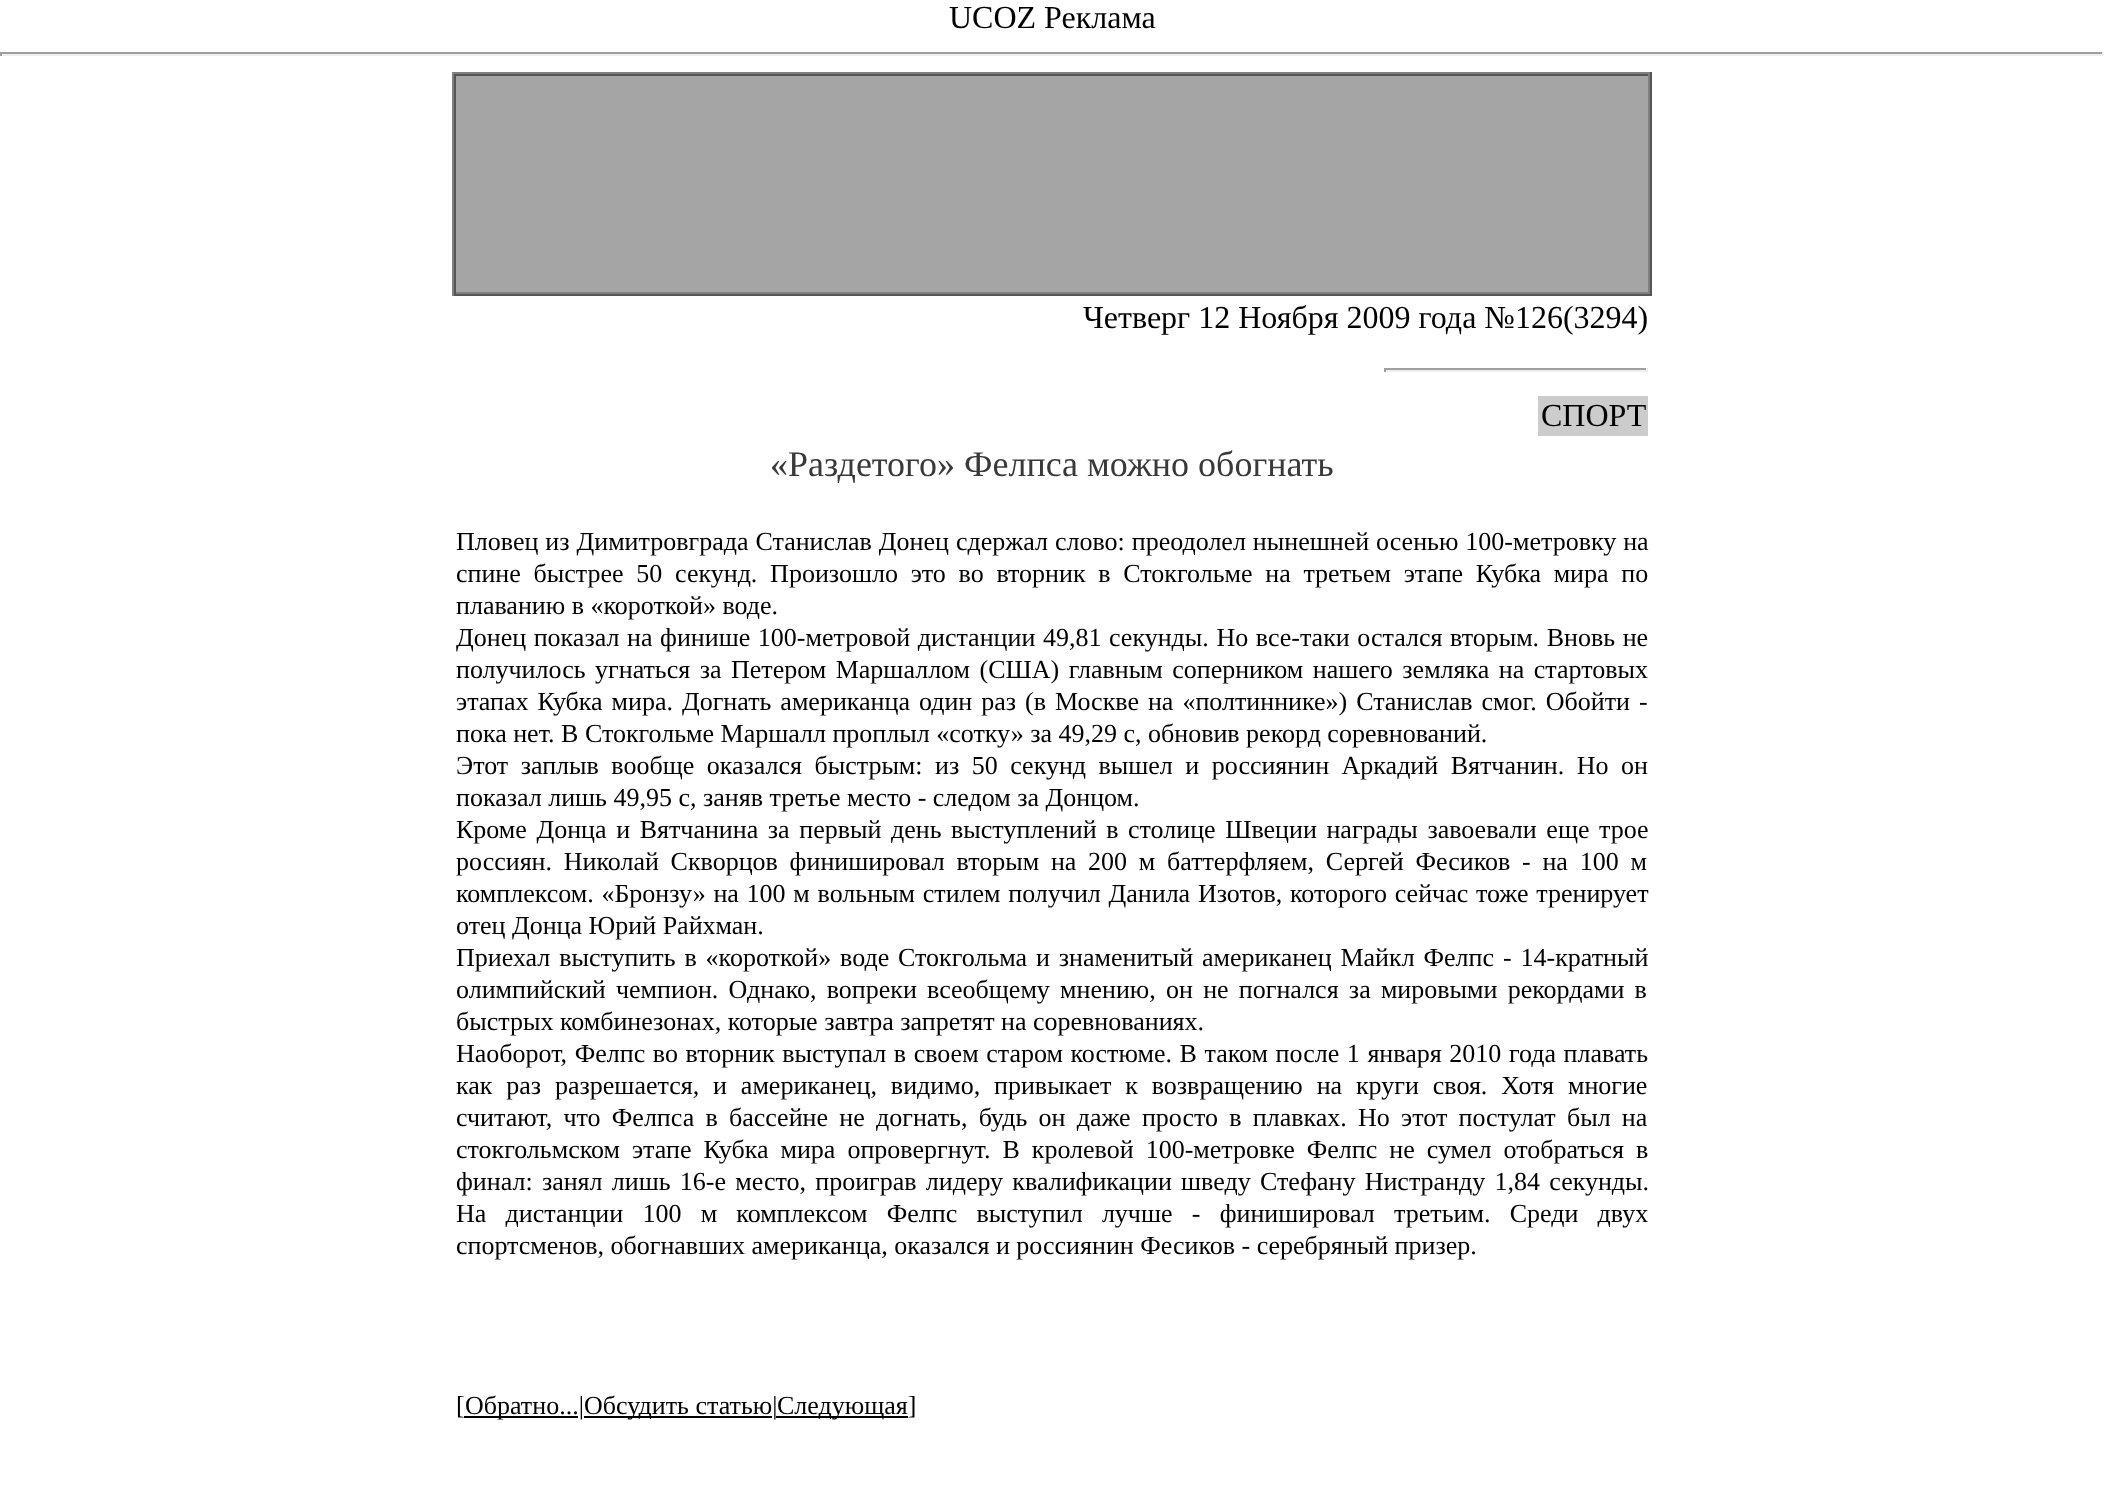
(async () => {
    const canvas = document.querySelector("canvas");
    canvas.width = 2104;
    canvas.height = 1489;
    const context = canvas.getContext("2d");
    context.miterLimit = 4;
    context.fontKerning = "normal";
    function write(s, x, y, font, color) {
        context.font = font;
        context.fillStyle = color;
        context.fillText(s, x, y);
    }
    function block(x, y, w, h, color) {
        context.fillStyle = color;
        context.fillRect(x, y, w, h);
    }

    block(0, 0, 2104, 1489, "rgb(255, 255, 255)");
    write("UCOZ Реклама", 949, 28, "32px Liberation Serif", "rgb(0, 0, 0)");
    block(0, 52, 2104, 2, "rgb(159, 159, 159)");
    block(2102, 52, 2, 4, "rgb(238, 238, 238)");
    block(0, 54, 2104, 2, "rgb(238, 238, 238)");
    block(0, 52, 2, 4, "rgb(159, 159, 159)");
    block(452, 72, 1200, 2, "rgb(128, 128, 128)");
    block(1650, 72, 2, 224, "rgb(85, 85, 85)");
    block(452, 294, 1200, 2, "rgb(85, 85, 85)");
    block(452, 72, 2, 224, "rgb(128, 128, 128)");
    block(456, 76, 1192, 216, "rgb(165, 165, 165)");
    block(454, 74, 1196, 2, "rgb(85, 85, 85)");
    block(1648, 74, 2, 220, "rgb(128, 128, 128)");
    block(454, 292, 1196, 2, "rgb(128, 128, 128)");
    block(454, 74, 2, 220, "rgb(85, 85, 85)");
    write("Четверг 12 Ноября 2009 года №126(3294)", 1083, 328, "32px Liberation Serif", "rgb(0, 0, 0)");
    block(1384, 368, 264, 2, "rgb(159, 159, 159)");
    block(1646, 368, 2, 4, "rgb(238, 238, 238)");
    block(1384, 370, 264, 2, "rgb(238, 238, 238)");
    block(1384, 368, 2, 4, "rgb(159, 159, 159)");
    block(1538, 396, 110, 40, "rgb(204, 204, 204)");
    write("СПОРТ", 1541, 426, "32px Liberation Serif", "rgb(0, 0, 0)");
    write("«Раздетого» Фелпса можно обогнать", 770, 476, "36px Liberation Serif", "rgb(57, 57, 57)");
    context.wordSpacing = "0.5px";
    write("Пловец из Димитровграда Станислав Донец сдержал слово: преодолел нынешней осенью 100-метровку на", 456, 550, "26px Liberation Serif", "rgb(0, 0, 0)");
    context.wordSpacing = "6.25px";
    write("спине быстрее 50 секунд. Произошло это во вторник в Стокгольме на третьем этапе Кубка мира по", 456, 582, "26px Liberation Serif", "rgb(0, 0, 0)");
    context.wordSpacing = "0px";
    write("плаванию в «короткой» воде.", 456, 614, "26px Liberation Serif", "rgb(0, 0, 0)");
    context.wordSpacing = "1.1px";
    write("Донец показал на финише 100-метровой дистанции 49,81 секунды. Но все-таки остался вторым. Вновь не", 456, 646, "26px Liberation Serif", "rgb(0, 0, 0)");
    context.wordSpacing = "3px";
    write("получилось угнаться за Петером Маршаллом (США) главным соперником нашего земляка на стартовых", 456, 678, "26px Liberation Serif", "rgb(0, 0, 0)");
    context.wordSpacing = "2.5px";
    write("этапах Кубка мира. Догнать американца один раз (в Москве на «полтиннике») Станислав смог. Обойти -", 456, 710, "26px Liberation Serif", "rgb(0, 0, 0)");
    context.wordSpacing = "0px";
    write("пока нет. В Стокгольме Маршалл проплыл «сотку» за 49,29 с, обновив рекорд соревнований.", 456, 742, "26px Liberation Serif", "rgb(0, 0, 0)");
    context.wordSpacing = "6px";
    write("Этот заплыв вообще оказался быстрым: из 50 секунд вышел и россиянин Аркадий Вятчанин. Но он", 456, 774, "26px Liberation Serif", "rgb(0, 0, 0)");
    context.wordSpacing = "0px";
    write("показал лишь 49,95 с, заняв третье место - следом за Донцом.", 456, 806, "26px Liberation Serif", "rgb(0, 0, 0)");
    context.wordSpacing = "3.1px";
    write("Кроме Донца и Вятчанина за первый день выступлений в столице Швеции награды завоевали еще трое", 456, 838, "26px Liberation Serif", "rgb(0, 0, 0)");
    context.wordSpacing = "5.25px";
    write("россиян. Николай Скворцов финишировал вторым на 200 м баттерфляем, Сергей Фесиков - на 100 м", 456, 870, "26px Liberation Serif", "rgb(0, 0, 0)");
    context.wordSpacing = "1.25px";
    write("комплексом. «Бронзу» на 100 м вольным стилем получил Данила Изотов, которого сейчас тоже тренирует", 456, 902, "26px Liberation Serif", "rgb(0, 0, 0)");
    context.wordSpacing = "0px";
    write("отец Донца Юрий Райхман.", 456, 934, "26px Liberation Serif", "rgb(0, 0, 0)");
    context.wordSpacing = "2.4px";
    write("Приехал выступить в «короткой» воде Стокгольма и знаменитый американец Майкл Фелпс - 14-кратный", 456, 966, "26px Liberation Serif", "rgb(0, 0, 0)");
    context.wordSpacing = "3.75px";
    write("олимпийский чемпион. Однако, вопреки всеобщему мнению, он не погнался за мировыми рекордами в", 456, 998, "26px Liberation Serif", "rgb(0, 0, 0)");
    context.wordSpacing = "0px";
    write("быстрых комбинезонах, которые завтра запретят на соревнованиях.", 456, 1030, "26px Liberation Serif", "rgb(0, 0, 0)");
    context.wordSpacing = "1.1px";
    write("Наоборот, Фелпс во вторник выступал в своем старом костюме. В таком после 1 января 2010 года плавать", 456, 1062, "26px Liberation Serif", "rgb(0, 0, 0)");
    context.wordSpacing = "7.4px";
    write("как раз разрешается, и американец, видимо, привыкает к возвращению на круги своя. Хотя многие", 456, 1094, "26px Liberation Serif", "rgb(0, 0, 0)");
    context.wordSpacing = "4.75px";
    write("считают, что Фелпса в бассейне не догнать, будь он даже просто в плавках. Но этот постулат был на", 456, 1126, "26px Liberation Serif", "rgb(0, 0, 0)");
    context.wordSpacing = "5.5px";
    write("стокгольмском этапе Кубка мира опровергнут. В кролевой 100-метровке Фелпс не сумел отобраться в", 456, 1158, "26px Liberation Serif", "rgb(0, 0, 0)");
    context.wordSpacing = "2.75px";
    write("финал: занял лишь 16-е место, проиграв лидеру квалификации шведу Стефану Нистранду 1,84 секунды.", 456, 1190, "26px Liberation Serif", "rgb(0, 0, 0)");
    context.wordSpacing = "12.75px";
    write("На дистанции 100 м комплексом Фелпс выступил лучше - финишировал третьим. Среди двух", 456, 1222, "26px Liberation Serif", "rgb(0, 0, 0)");
    context.wordSpacing = "0px";
    write("спортсменов, обогнавших американца, оказался и россиянин Фесиков - серебряный призер.", 456, 1254, "26px Liberation Serif", "rgb(0, 0, 0)");
    write("[", 456, 1414, "26px Liberation Serif", "rgb(0, 0, 0)");
    block(464, 1416, 114, 2, "rgb(0, 0, 0)");
    write("Обратно...|", 465, 1414, "26px Liberation Serif", "rgb(0, 0, 0)");
    block(584, 1416, 188, 2, "rgb(0, 0, 0)");
    write("Обсудить статью|", 584, 1414, "26px Liberation Serif", "rgb(0, 0, 0)");
    block(776, 1416, 132, 2, "rgb(0, 0, 0)");
    write("Следующая]", 777, 1414, "26px Liberation Serif", "rgb(0, 0, 0)");
})();
